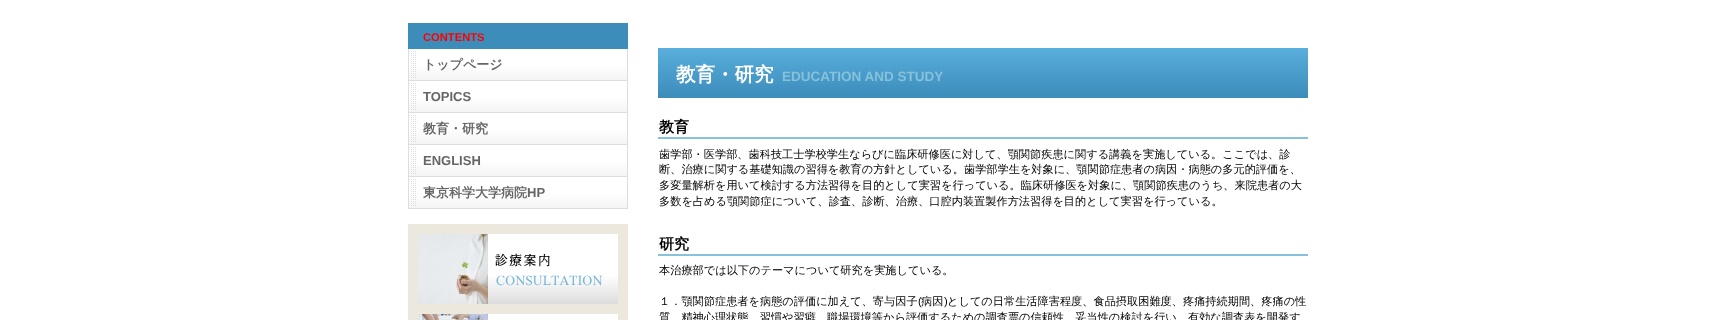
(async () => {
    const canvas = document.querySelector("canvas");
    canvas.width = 1715;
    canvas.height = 320;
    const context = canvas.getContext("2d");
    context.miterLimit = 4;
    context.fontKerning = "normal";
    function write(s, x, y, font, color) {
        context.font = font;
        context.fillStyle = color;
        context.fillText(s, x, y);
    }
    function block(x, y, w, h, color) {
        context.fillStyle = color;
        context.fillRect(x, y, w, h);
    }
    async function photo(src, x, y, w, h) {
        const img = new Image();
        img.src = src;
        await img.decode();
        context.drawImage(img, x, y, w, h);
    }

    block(0, 0, 1715, 320, "rgb(255, 255, 255)");
    block(408, 23, 220, 26, "rgb(61, 141, 187)");
    write("CONTENTS", 423, 41, "bold 11.2px Liberation Sans", "rgb(255, 0, 0)");
    await photo("media/1.png", 408, 49, 220, 32);
    write("トップページ", 423, 69, "bold 13px WenQuanYi Zen Hei", "rgb(102, 102, 102)");
    await photo("media/1.png", 408, 81, 220, 32);
    write("TOPICS", 423, 101, "bold 13px Liberation Sans", "rgb(102, 102, 102)");
    await photo("media/1.png", 408, 113, 220, 32);
    write("教育・研究", 423, 133, "bold 13px WenQuanYi Zen Hei", "rgb(102, 102, 102)");
    await photo("media/1.png", 408, 145, 220, 32);
    write("ENGLISH", 423, 165, "bold 13px Liberation Sans", "rgb(102, 102, 102)");
    await photo("media/1.png", 408, 177, 220, 32);
    write("東京科学大学病院", 423, 197, "bold 13px WenQuanYi Zen Hei", "rgb(102, 102, 102)");
    write("HP", 527, 197, "bold 13px Liberation Sans", "rgb(102, 102, 102)");
    await photo("media/2.png", 658, 48, 650, 50);
    write("教育・研究", 676, 81, "bold 19.5px WenQuanYi Zen Hei", "rgb(255, 255, 255)");
    write("EDUCATION AND STUDY", 782, 81, "bold 13.5px Liberation Sans", "rgb(135, 193, 218)");
    block(658, 137, 650, 2, "rgb(135, 193, 218)");
    write("教育", 659, 132, "bold 15px WenQuanYi Zen Hei", "rgb(0, 0, 0)");
    write("歯学部・医学部、歯科技工士学校学生ならびに臨床研修医に対して、顎関節疾患に関する講義を実施している。ここでは、診", 659, 158, "500 11.2px WenQuanYi Zen Hei", "rgb(0, 0, 0)");
    write("断、治療に関する基礎知識の習得を教育の方針としている。歯学部学生を対象に、顎関節症患者の病因・病態の多元的評価を、", 659, 173, "500 11.2px WenQuanYi Zen Hei", "rgb(0, 0, 0)");
    write("多変量解析を用いて検討する方法習得を目的として実習を行っている。臨床研修医を対象に、顎関節疾患のうち、来院患者の大", 659, 189, "500 11.2px WenQuanYi Zen Hei", "rgb(0, 0, 0)");
    write("多数を占める顎関節症について、診査、診断、治療、口腔内装置製作方法習得を目的として実習を行っている。", 659, 205, "500 11.2px WenQuanYi Zen Hei", "rgb(0, 0, 0)");
    block(658, 254, 650, 2, "rgb(135, 193, 218)");
    write("研究", 659, 249, "bold 15px WenQuanYi Zen Hei", "rgb(0, 0, 0)");
    write("本治療部では以下のテーマについて研究を実施している。", 659, 274, "500 11.2px WenQuanYi Zen Hei", "rgb(0, 0, 0)");
    write("１．顎関節症患者を病態の評価に加えて、寄与因子", 659, 305, "500 11.2px WenQuanYi Zen Hei", "rgb(0, 0, 0)");
    write("(", 918, 305, "11.2px Liberation Sans", "rgb(0, 0, 0)");
    write("病因", 921, 305, "500 11.2px WenQuanYi Zen Hei", "rgb(0, 0, 0)");
    write(")", 944, 305, "11.2px Liberation Sans", "rgb(0, 0, 0)");
    write("としての日常生活障害程度、食品摂取困難度、疼痛持続期間、疼痛の性", 947, 305, "500 11.2px WenQuanYi Zen Hei", "rgb(0, 0, 0)");
    write("質、精神心理状態、習慣や習癖、職場環境等から評価するための調査票の信頼性、妥当性の検討を行い、有効な調査表を開発す", 659, 321, "500 11.2px WenQuanYi Zen Hei", "rgb(0, 0, 0)");
    block(408, 224, 220, 96, "rgb(236, 232, 221)");
    await photo("media/3.png", 418, 234, 200, 70);
    await photo("media/4.png", 418, 314, 200, 6);
})();
